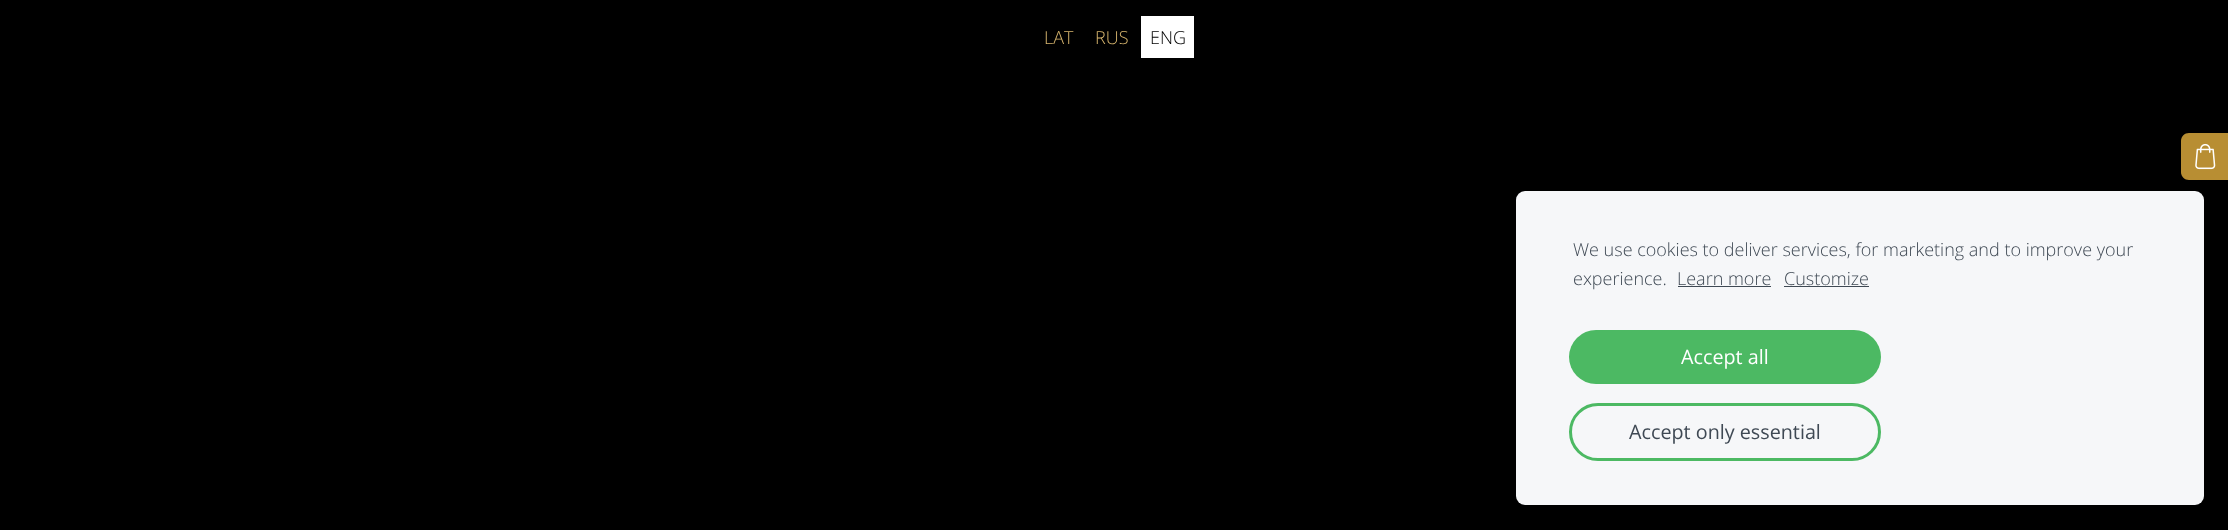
(async () => {
    const canvas = document.querySelector("canvas");
    canvas.width = 2228;
    canvas.height = 530;
    const context = canvas.getContext("2d");
    context.miterLimit = 4;
    context.fontKerning = "normal";
    function write(s, x, y, font, color) {
        context.font = font;
        context.fillStyle = color;
        context.fillText(s, x, y);
    }
    function block(x, y, w, h, color) {
        context.fillStyle = color;
        context.fillRect(x, y, w, h);
    }
    function card(x, y, w, h, r, color) {
        context.fillStyle = color;
        context.beginPath();
        context.roundRect(x, y, w, h, r);
        context.fill();
    }
    async function photo(src, x, y, w, h) {
        const img = new Image();
        img.src = src;
        await img.decode();
        context.drawImage(img, x, y, w, h);
    }

    block(0, 0, 2228, 530, "rgb(0, 0, 0)");
    write("LAT", 1044, 44, "300 18px Open Sans", "rgb(215, 181, 109)");
    write("RUS", 1095, 44, "300 18px Open Sans", "rgb(215, 181, 109)");
    block(1141, 16, 53, 42, "rgb(255, 255, 255)");
    write("ENG", 1150, 44, "300 18px Open Sans", "rgb(0, 0, 0)");
    context.fillStyle = "rgb(184, 142, 51)";
    context.beginPath();
    context.moveTo(2189, 133);
    context.lineTo(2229, 133);
    context.lineTo(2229, 180);
    context.lineTo(2189, 180);
    context.bezierCurveTo(2184.5, 180, 2181, 176.5, 2181, 172);
    context.lineTo(2181, 141);
    context.bezierCurveTo(2181, 136.5, 2184.5, 133, 2189, 133);
    context.closePath();
    context.fill();
    await photo("media/1.png", 2195, 143, 21, 27);
    card(1516, 191, 688, 314, 9, "rgb(246, 247, 249)");
    write("We use cookies to deliver services, for marketing and to improve your", 1573, 256, "300 18px Open Sans", "rgb(63, 73, 84)");
    write("experience.", 1573, 285, "300 18px Open Sans", "rgb(63, 73, 84)");
    write("Learn more", 1677, 285, "300 18px Open Sans", "rgb(63, 73, 84)");
    block(1678, 286, 93, 1, "rgb(63, 73, 84)");
    write("Customize", 1784, 285, "300 18px Open Sans", "rgb(63, 73, 84)");
    block(1784, 286, 85, 1, "rgb(63, 73, 84)");
    card(1569, 330, 312, 54, 27, "rgb(76, 185, 99)");
    write("Accept all", 1681, 364, "19.75px Open Sans", "rgb(255, 255, 255)");
    context.beginPath();
    context.roundRect(1570.5, 404.5, 309, 55, 27.5);
    context.strokeStyle = "rgb(76, 185, 99)";
    context.lineWidth = 3;
    context.stroke();
    write("Accept only essential", 1629, 439, "19.75px Open Sans", "rgb(63, 73, 84)");
})();
